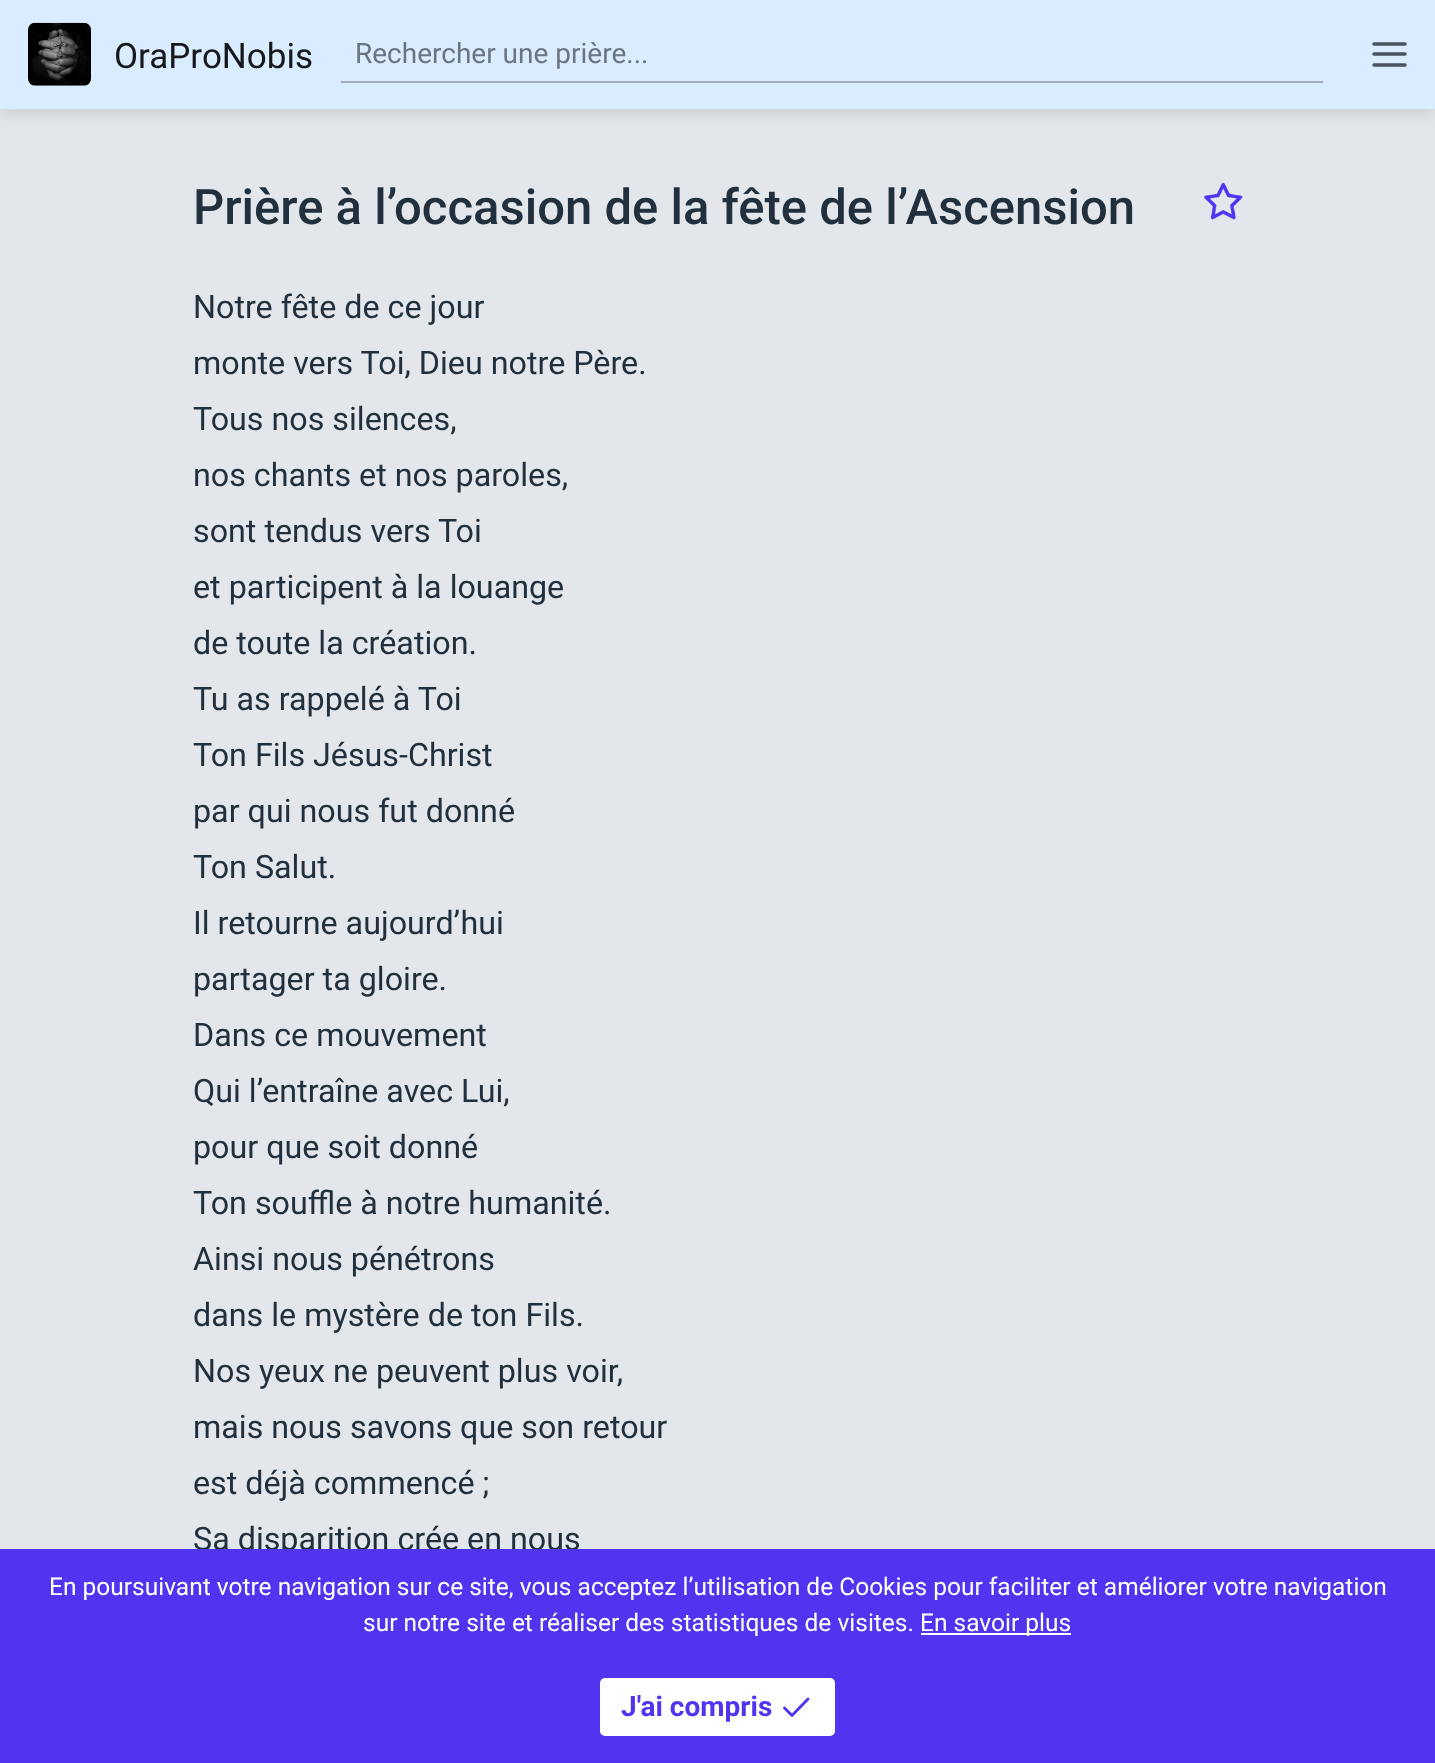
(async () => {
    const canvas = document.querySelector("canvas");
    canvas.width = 1435;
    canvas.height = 1763;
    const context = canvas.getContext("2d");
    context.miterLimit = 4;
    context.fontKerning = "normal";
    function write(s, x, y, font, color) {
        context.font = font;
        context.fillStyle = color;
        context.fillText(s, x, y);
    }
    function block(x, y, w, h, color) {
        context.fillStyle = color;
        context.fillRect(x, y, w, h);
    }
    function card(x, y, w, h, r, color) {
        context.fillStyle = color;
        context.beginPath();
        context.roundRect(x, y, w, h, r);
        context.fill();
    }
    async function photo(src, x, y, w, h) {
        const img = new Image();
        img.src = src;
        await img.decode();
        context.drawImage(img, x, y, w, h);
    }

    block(0, 0, 1435, 1763, "rgb(227, 231, 236)");
    context.fillStyle = "rgba(0, 0, 0, 0.09)";
    context.filter = "blur(7px)";
    context.beginPath();
    context.rect(0, 7, 1435, 109);
    context.fill();
    context.filter = "none";
    block(0, 0, 1435, 109, "rgb(218, 236, 255)");
    await photo("media/1.png", 28, 22, 63, 64);
    write("OraProNobis", 114, 68, "35px Roboto", "rgb(22, 24, 26)");
    block(341, 81, 982, 2, "rgb(164, 174, 184)");
    write("Rechercher une prière...", 355, 63, "28px Roboto", "rgb(107, 117, 127)");
    context.beginPath();
    context.moveTo(1374, 54);
    context.lineTo(1405, 54);
    context.moveTo(1374, 44);
    context.lineTo(1405, 44);
    context.moveTo(1374, 65);
    context.lineTo(1405, 65);
    context.strokeStyle = "rgb(74, 84, 94)";
    context.lineWidth = 3.5;
    context.lineCap = "round";
    context.lineJoin = "round";
    context.stroke();
    write("Prière à l’occasion de la fête de l’Ascension", 193, 224, "500 49px Roboto", "rgb(34, 48, 62)");
    await photo("media/2.png", 1204, 182, 39, 38);
    write("Notre fête de ce jour", 193, 318, "32.25px Roboto", "rgb(34, 48, 62)");
    write("monte vers Toi, Dieu notre Père.", 193, 374, "32.25px Roboto", "rgb(34, 48, 62)");
    write("Tous nos silences,", 193, 430, "32.25px Roboto", "rgb(34, 48, 62)");
    write("nos chants et nos paroles,", 193, 486, "32.25px Roboto", "rgb(34, 48, 62)");
    write("sont tendus vers Toi", 193, 542, "32.25px Roboto", "rgb(34, 48, 62)");
    write("et participent à la louange", 193, 598, "32.25px Roboto", "rgb(34, 48, 62)");
    write("de toute la création.", 193, 654, "32.25px Roboto", "rgb(34, 48, 62)");
    write("Tu as rappelé à Toi", 193, 710, "32.25px Roboto", "rgb(34, 48, 62)");
    write("Ton Fils Jésus-Christ", 193, 766, "32.25px Roboto", "rgb(34, 48, 62)");
    write("par qui nous fut donné", 193, 822, "32.25px Roboto", "rgb(34, 48, 62)");
    write("Ton Salut.", 193, 878, "32.25px Roboto", "rgb(34, 48, 62)");
    write("Il retourne aujourd’hui", 193, 934, "32.25px Roboto", "rgb(34, 48, 62)");
    write("partager ta gloire.", 193, 990, "32.25px Roboto", "rgb(34, 48, 62)");
    write("Dans ce mouvement", 193, 1046, "32.25px Roboto", "rgb(34, 48, 62)");
    write("Qui l’entraîne avec Lui,", 193, 1102, "32.25px Roboto", "rgb(34, 48, 62)");
    write("pour que soit donné", 193, 1158, "32.25px Roboto", "rgb(34, 48, 62)");
    write("Ton souffle à notre humanité.", 193, 1214, "32.25px Roboto", "rgb(34, 48, 62)");
    write("Ainsi nous pénétrons", 193, 1270, "32.25px Roboto", "rgb(34, 48, 62)");
    write("dans le mystère de ton Fils.", 193, 1326, "32.25px Roboto", "rgb(34, 48, 62)");
    write("Nos yeux ne peuvent plus voir,", 193, 1382, "32.25px Roboto", "rgb(34, 48, 62)");
    write("mais nous savons que son retour", 193, 1438, "32.25px Roboto", "rgb(34, 48, 62)");
    write("est déjà commencé ;", 193, 1494, "32.25px Roboto", "rgb(34, 48, 62)");
    write("Sa disparition crée en nous", 193, 1550, "32.25px Roboto", "rgb(34, 48, 62)");
    block(0, 1549, 1435, 214, "rgb(80, 52, 239)");
    write("En poursuivant votre navigation sur ce site, vous acceptez l’utilisation de Cookies pour faciliter et améliorer votre navigation", 49, 1595, "24.5px Roboto", "rgb(255, 255, 255)");
    write("sur notre site et réaliser des statistiques de visites.", 363, 1631, "24.5px Roboto", "rgb(255, 255, 255)");
    block(921, 1633, 150, 2, "rgb(255, 255, 255)");
    write("En savoir plus", 920, 1631, "24.5px Roboto", "rgb(255, 255, 255)");
    card(600, 1678, 235, 58, 5, "rgb(255, 255, 255)");
    write("J'ai compris", 621, 1716, "bold 28px Roboto", "rgb(80, 52, 239)");
    context.beginPath();
    context.moveTo(808, 1699);
    context.lineTo(792, 1715.5);
    context.lineTo(784.5, 1708);
    context.strokeStyle = "rgb(80, 52, 239)";
    context.lineWidth = 2.9;
    context.stroke();
})();
